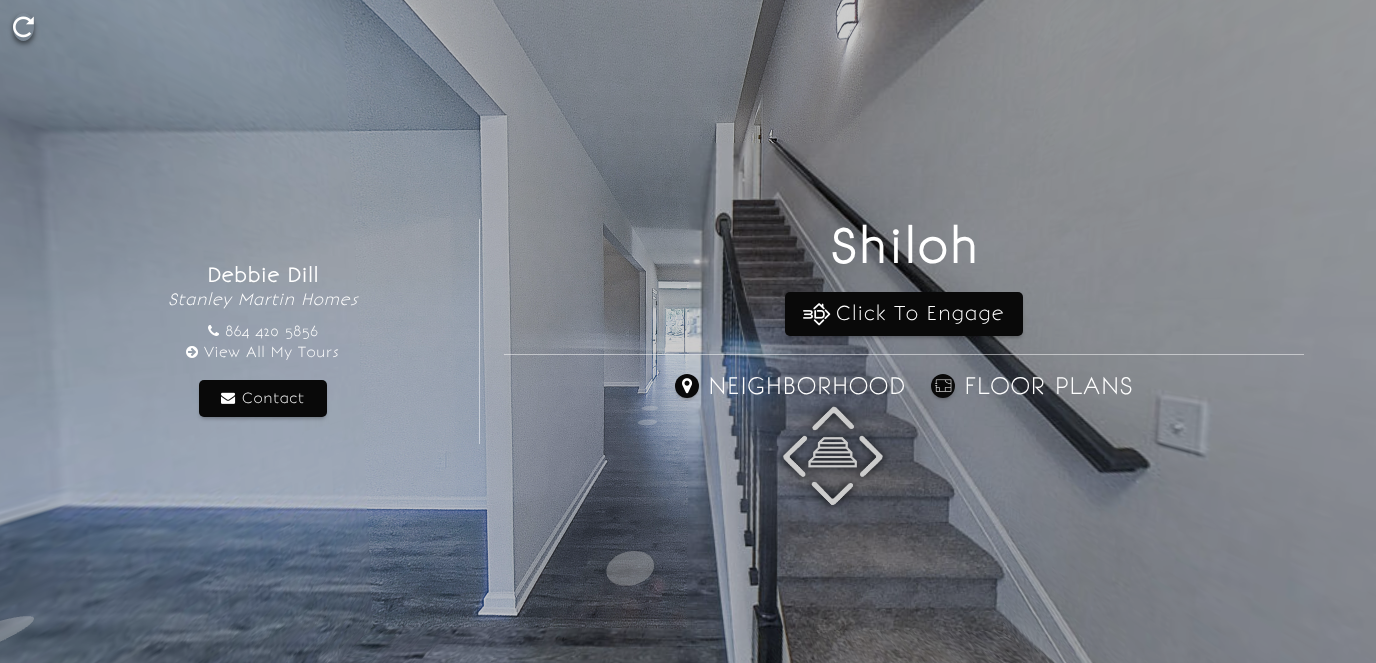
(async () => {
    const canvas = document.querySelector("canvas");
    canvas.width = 1376;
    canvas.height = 663;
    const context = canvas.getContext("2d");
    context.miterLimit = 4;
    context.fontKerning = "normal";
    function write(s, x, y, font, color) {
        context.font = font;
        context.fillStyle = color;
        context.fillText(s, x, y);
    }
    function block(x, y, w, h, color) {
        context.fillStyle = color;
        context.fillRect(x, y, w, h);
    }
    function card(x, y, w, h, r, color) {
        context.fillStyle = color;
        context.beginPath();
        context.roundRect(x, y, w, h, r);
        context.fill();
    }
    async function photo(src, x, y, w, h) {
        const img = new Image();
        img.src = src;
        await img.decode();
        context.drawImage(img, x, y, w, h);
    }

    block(0, 0, 1376, 663, "rgb(255, 255, 255)");
    await photo("media/1.png", 0, 0, 1376, 663);
    await photo("media/2.png", 777, 399, 113, 113);
    context.save();
    context.beginPath();
    context.moveTo(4, 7);
    context.lineTo(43, 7);
    context.lineTo(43, 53);
    context.lineTo(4, 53);
    context.closePath();
    context.moveTo(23.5, 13);
    context.bezierCurveTo(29.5, 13, 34, 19.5, 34, 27);
    context.bezierCurveTo(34, 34.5, 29.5, 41, 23.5, 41);
    context.bezierCurveTo(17.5, 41, 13, 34.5, 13, 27);
    context.bezierCurveTo(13, 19.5, 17.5, 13, 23.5, 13);
    context.closePath();
    context.clip("evenodd");
    context.fillStyle = "rgba(0, 0, 0, 0.5)";
    context.filter = "blur(2.5px)";
    context.beginPath();
    context.roundRect(13, 16, 21, 28, 10.5);
    context.fill();
    context.filter = "none";
    context.restore();
    await photo("media/3.png", 13, 16, 21, 22);
    write("Debbie Dill", 207, 282, "bold 19.25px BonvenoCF", "rgb(255, 255, 255)");
    write("Stanley Martin Homes", 168, 305, "italic 300 15.8px BonvenoCF", "rgb(255, 255, 255)");
    await photo("media/4.png", 208, 325, 11, 11);
    write("864 420 5856", 225, 336, "300 14px BonvenoCF", "rgb(255, 255, 255)");
    await photo("media/5.png", 186, 346, 12, 12);
    write("View All My Tours", 204, 357, "300 14px BonvenoCF", "rgb(255, 255, 255)");
    context.fillStyle = "rgba(0, 0, 0, 0.35)";
    context.filter = "blur(2px)";
    context.beginPath();
    context.roundRect(201, 385, 124, 33, 3);
    context.fill();
    context.filter = "none";
    card(199, 380, 128, 37, 5, "rgb(9, 9, 9)");
    await photo("media/6.png", 221, 392, 15, 12);
    write("Contact", 242, 403, "300 14px BonvenoCF", "rgb(255, 255, 255)");
    block(479, 219, 1, 225, "rgba(255, 255, 255, 0.5)");
    write("Shiloh", 830, 263, "bold 46px BonvenoCF", "rgb(255, 255, 255)");
    context.fillStyle = "rgba(0, 0, 0, 0.35)";
    context.filter = "blur(2px)";
    context.beginPath();
    context.roundRect(787, 297, 234, 40, 3);
    context.fill();
    context.filter = "none";
    card(785, 292, 238, 44, 5, "rgb(9, 9, 9)");
    await photo("media/7.png", 803, 303, 28, 23);
    write("Click To Engage", 836, 320, "300 19.25px BonvenoCF", "rgb(255, 255, 255)");
    block(504, 354, 800, 1, "rgba(255, 255, 255, 0.5)");
    context.fillStyle = "rgba(0, 0, 0, 0.35)";
    context.filter = "blur(2px)";
    context.beginPath();
    context.roundRect(677, 379, 20, 20, 10);
    context.fill();
    context.filter = "none";
    context.fillStyle = "rgb(9, 9, 9)";
    context.beginPath();
    context.arc(687, 386, 12, 0, Math.PI * 2);
    context.fill();
    await photo("media/8.png", 682, 378, 11, 16);
    write("NEIGHBORHOOD", 708, 394, "300 22.9px BonvenoCF", "rgb(255, 255, 255)");
    context.fillStyle = "rgba(0, 0, 0, 0.35)";
    context.filter = "blur(2px)";
    context.beginPath();
    context.roundRect(933, 379, 20, 20, 10);
    context.fill();
    context.filter = "none";
    context.fillStyle = "rgb(9, 9, 9)";
    context.beginPath();
    context.arc(943, 386, 12, 0, Math.PI * 2);
    context.fill();
    await photo("media/9.png", 935, 379, 17, 13);
    write("FLOOR PLANS", 964, 394, "300 22.9px BonvenoCF", "rgb(255, 255, 255)");
})();
